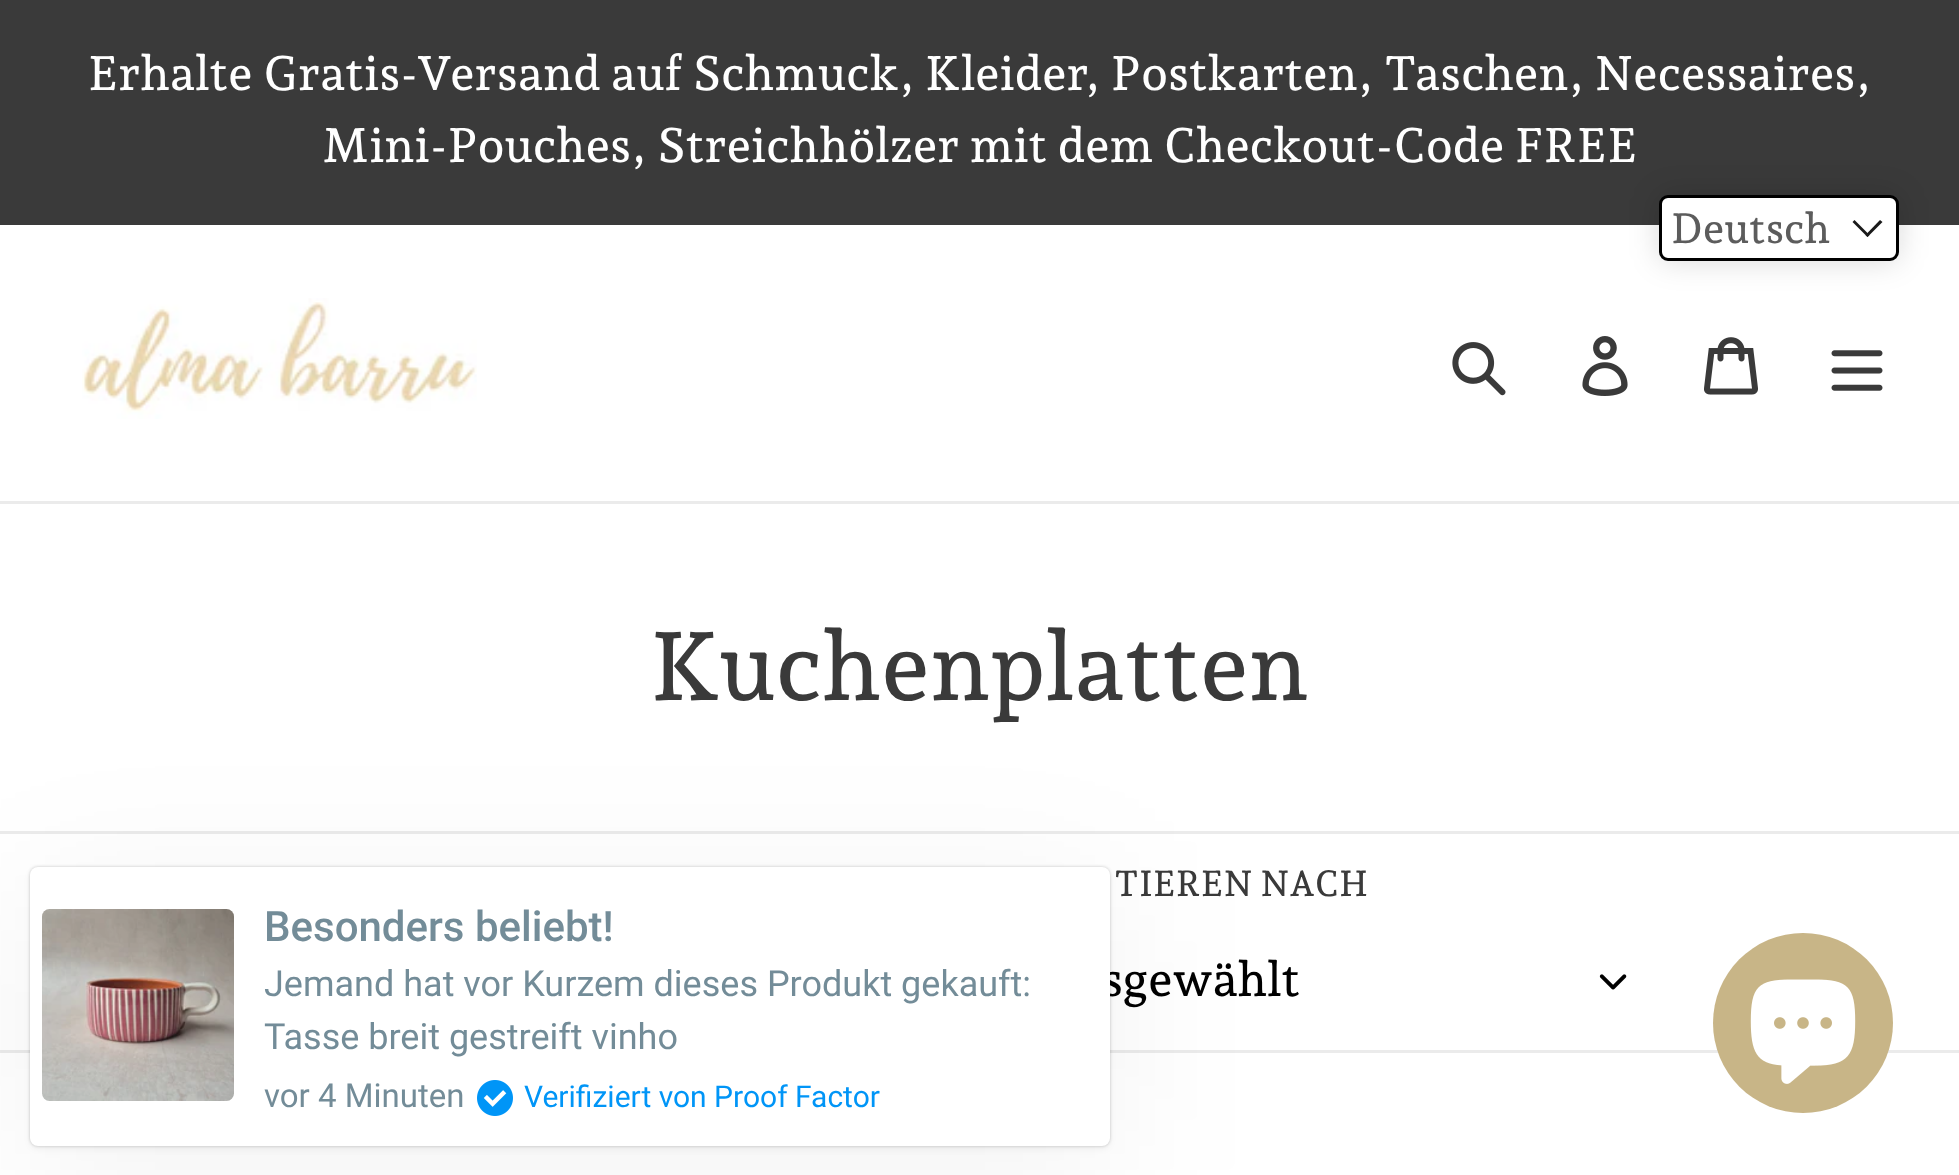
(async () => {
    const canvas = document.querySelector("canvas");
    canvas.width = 1959;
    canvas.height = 1175;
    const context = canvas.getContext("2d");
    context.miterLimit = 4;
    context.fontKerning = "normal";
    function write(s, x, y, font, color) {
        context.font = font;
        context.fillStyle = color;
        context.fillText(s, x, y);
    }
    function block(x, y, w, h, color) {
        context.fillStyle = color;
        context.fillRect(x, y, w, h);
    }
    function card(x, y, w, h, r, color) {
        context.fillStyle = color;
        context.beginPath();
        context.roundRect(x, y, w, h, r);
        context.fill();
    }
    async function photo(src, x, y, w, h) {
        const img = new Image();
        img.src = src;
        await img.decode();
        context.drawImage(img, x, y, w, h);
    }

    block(0, 0, 1959, 1175, "rgb(255, 255, 255)");
    block(0, 0, 1959, 225, "rgb(58, 58, 58)");
    write("Erhalte Gratis-Versand auf Schmuck, Kleider, Postkarten, Taschen, Necessaires,", 88, 90, "500 48px Andada Pro", "rgb(255, 255, 255)");
    write("Mini-Pouches, Streichhölzer mit dem Checkout-Code FREE", 322, 162, "500 48px Andada Pro", "rgb(255, 255, 255)");
    block(0, 501, 1959, 3, "rgb(235, 235, 235)");
    await photo("media/1.png", 82, 298, 395, 121);
    await photo("media/2.png", 1452, 342, 54, 54);
    await photo("media/3.png", 1582, 336, 46, 60);
    await photo("media/4.png", 1704, 337, 54, 58);
    await photo("media/5.png", 1831, 350, 52, 41);
    context.fillStyle = "rgba(0, 0, 0, 0.15)";
    context.filter = "blur(15px)";
    context.beginPath();
    context.roundRect(1659, 195, 240, 66, 9);
    context.fill();
    context.filter = "none";
    context.fillStyle = "rgb(255, 255, 255)";
    context.beginPath();
    context.roundRect(1660.5, 196.5, 237, 63, 7.5);
    context.fill();
    context.strokeStyle = "rgb(0, 0, 0)";
    context.lineWidth = 3;
    context.stroke();
    write("Deutsch", 1671, 243, "500 42px Andada Pro", "rgb(92, 92, 92)");
    context.fillStyle = "rgb(26, 26, 26)";
    context.beginPath();
    context.moveTo(1880, 220);
    context.lineTo(1882.5, 222);
    context.lineTo(1867.5, 237);
    context.lineTo(1865.5, 235);
    context.closePath();
    context.fill();
    context.beginPath();
    context.moveTo(1854.5, 220);
    context.lineTo(1869.5, 235);
    context.lineTo(1867.5, 237);
    context.lineTo(1852.5, 222);
    context.closePath();
    context.fill();
    write("Kuchenplatten", 650, 700, "500 96px Andada Pro", "rgb(58, 58, 58)");
    block(0, 831, 1959, 3, "rgb(235, 235, 235)");
    write("TIEREN NACH", 1114, 896, "500 36px Andada Pro", "rgb(58, 58, 58)");
    write("sgewählt", 1102, 996, "500 48px Andada Pro", "rgb(0, 0, 0)");
    await photo("media/6.png", 1599, 974, 28, 16);
    block(0, 1050, 1959, 3, "rgb(235, 235, 235)");
    context.fillStyle = "rgba(0, 0, 0, 0.05)";
    context.filter = "blur(75px)";
    context.beginPath();
    context.roundRect(30, 891, 1080, 279, 8);
    context.fill();
    context.filter = "none";
    context.filter = "blur(3px)";
    context.beginPath();
    context.roundRect(30, 870, 1080, 279, 8);
    context.fill();
    context.filter = "none";
    context.fillStyle = "rgba(0, 0, 0, 0.2)";
    context.filter = "blur(1.5px)";
    context.beginPath();
    context.roundRect(30, 867, 1080, 279, 8);
    context.fill();
    context.filter = "none";
    card(30, 867, 1080, 279, 8, "rgb(255, 255, 255)");
    await photo("media/7.png", 42, 909, 192, 192);
    write("Besonders beliebt!", 264, 941, "500 42px Roboto", "rgb(115, 140, 152)");
    write("Jemand hat vor Kurzem dieses Produkt gekauft:", 264, 996, "36px Roboto", "rgb(115, 140, 152)");
    write("Tasse breit gestreift vinho", 264, 1049, "36px Roboto", "rgb(115, 140, 152)");
    write("vor 4 Minuten", 264, 1107, "33px Roboto", "rgb(115, 140, 152)");
    await photo("media/8.png", 477, 1080, 36, 36);
    write("Verifiziert von Proof Factor", 524, 1107, "30px Roboto", "rgb(0, 149, 247)");
    context.fillStyle = "rgb(200, 181, 135)";
    context.beginPath();
    context.arc(1803, 1023, 90, 0, Math.PI * 2);
    context.fill();
    await photo("media/9.png", 1750, 979, 106, 105);
})();
